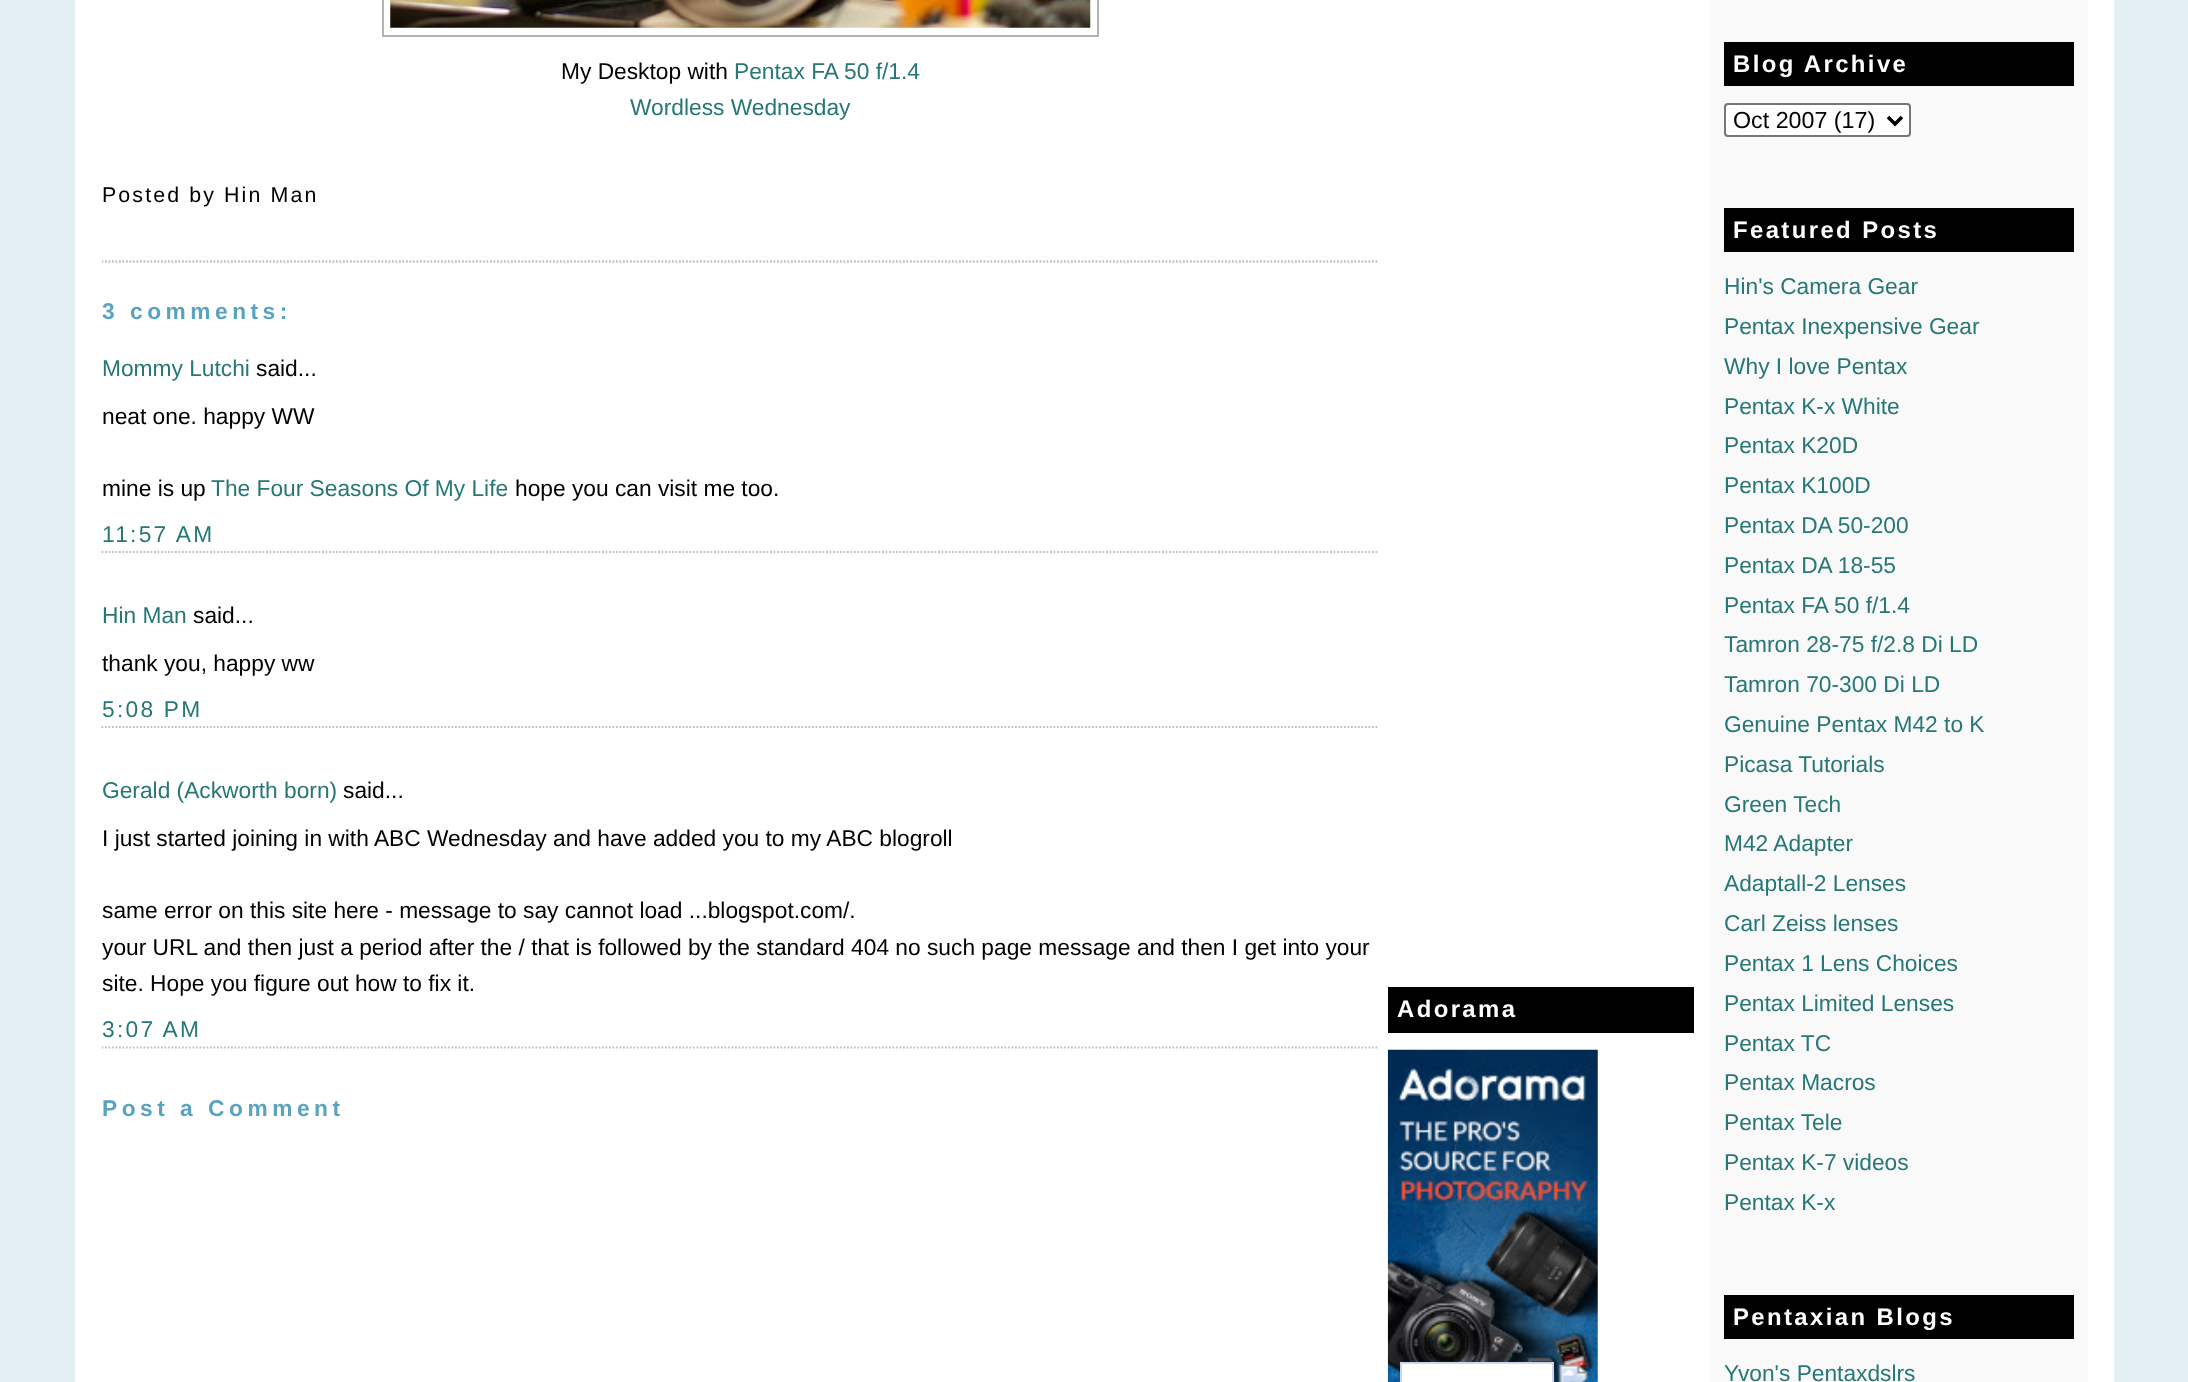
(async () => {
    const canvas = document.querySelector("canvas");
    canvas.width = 2188;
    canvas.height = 1382;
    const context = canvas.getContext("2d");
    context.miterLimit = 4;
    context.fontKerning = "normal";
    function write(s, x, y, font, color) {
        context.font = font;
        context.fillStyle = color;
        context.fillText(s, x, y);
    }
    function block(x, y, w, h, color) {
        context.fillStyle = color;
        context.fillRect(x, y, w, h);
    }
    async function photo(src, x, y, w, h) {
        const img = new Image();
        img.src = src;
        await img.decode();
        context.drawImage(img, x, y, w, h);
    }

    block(0, 0, 2188, 1382, "rgb(228, 239, 244)");
    block(75, 0, 2039, 1382, "rgb(255, 255, 255)");
    context.save();
    context.beginPath();
    context.rect(102, 0, 1277, 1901);
    context.clip();
    context.beginPath();
    context.moveTo(101.5, 261.5);
    context.lineTo(1379, 261.5);
    context.strokeStyle = "rgb(179, 179, 179)";
    context.lineWidth = 1.8;
    context.setLineDash([1.75, 1.75]);
    context.stroke();
    context.restore();
    context.strokeStyle = "rgb(179, 179, 179)";
    context.lineWidth = 2;
    context.strokeRect(383, -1, 715, 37);
    await photo("media/1.png", 390, 0, 701, 28);
    write("My Desktop with", 561, 79, "22.75px Liberation Sans", "rgb(0, 0, 0)");
    write("Pentax FA 50 f/1.4", 734, 79, "22.75px Liberation Sans", "rgb(39, 119, 119)");
    write("Wordless Wednesday", 630, 115, "22.75px Liberation Sans", "rgb(39, 119, 119)");
    context.letterSpacing = "2.1px";
    write("Posted by Hin Man", 102, 202, "21.4px Liberation Sans", "rgb(0, 0, 0)");
    context.letterSpacing = "4.5px";
    write("3 comments:", 102, 319, "bold 22.75px Liberation Sans", "rgb(89, 163, 193)");
    context.letterSpacing = "0px";
    write("Mommy Lutchi", 102, 376, "22.75px Liberation Sans", "rgb(39, 119, 119)");
    write("said...", 256, 376, "22.75px Liberation Sans", "rgb(0, 0, 0)");
    write("neat one. happy WW", 102, 424, "22.75px Liberation Sans", "rgb(0, 0, 0)");
    write("mine is up", 102, 496, "22.75px Liberation Sans", "rgb(0, 0, 0)");
    write("The Four Seasons Of My Life", 211, 496, "22.75px Liberation Sans", "rgb(39, 119, 119)");
    write("hope you can visit me too.", 515, 496, "22.75px Liberation Sans", "rgb(0, 0, 0)");
    context.beginPath();
    context.moveTo(101.5, 552);
    context.lineTo(1379, 552);
    context.strokeStyle = "rgb(192, 192, 192)";
    context.lineWidth = 1.8;
    context.setLineDash([1.75, 1.75]);
    context.stroke();
    context.letterSpacing = "2.25px";
    write("11:57 AM", 102, 542, "22.75px Liberation Sans", "rgb(39, 119, 119)");
    context.letterSpacing = "0px";
    write("Hin Man", 102, 623, "22.75px Liberation Sans", "rgb(39, 119, 119)");
    write("said...", 193, 623, "22.75px Liberation Sans", "rgb(0, 0, 0)");
    write("thank you, happy ww", 102, 671, "22.75px Liberation Sans", "rgb(0, 0, 0)");
    context.beginPath();
    context.moveTo(101.5, 727);
    context.lineTo(1379, 727);
    context.stroke();
    context.letterSpacing = "2.25px";
    write("5:08 PM", 102, 717, "22.75px Liberation Sans", "rgb(39, 119, 119)");
    context.letterSpacing = "0px";
    write("Gerald (Ackworth born)", 102, 798, "22.75px Liberation Sans", "rgb(39, 119, 119)");
    write("said...", 343, 798, "22.75px Liberation Sans", "rgb(0, 0, 0)");
    write("I just started joining in with ABC Wednesday and have added you to my ABC blogroll", 102, 846, "22.75px Liberation Sans", "rgb(0, 0, 0)");
    write("same error on this site here - message to say cannot load ...blogspot.com/.", 102, 918, "22.75px Liberation Sans", "rgb(0, 0, 0)");
    write("your URL and then just a period after the / that is followed by the standard 404 no such page message and then I get into your", 102, 955, "22.75px Liberation Sans", "rgb(0, 0, 0)");
    write("site. Hope you figure out how to fix it.", 102, 991, "22.75px Liberation Sans", "rgb(0, 0, 0)");
    context.save();
    context.beginPath();
    context.rect(102, 0, 1277, 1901);
    context.clip();
    context.beginPath();
    context.moveTo(101.5, 1047.5);
    context.lineTo(1379, 1047.5);
    context.stroke();
    context.restore();
    context.letterSpacing = "2.25px";
    write("3:07 AM", 102, 1037, "22.75px Liberation Sans", "rgb(39, 119, 119)");
    context.letterSpacing = "4.5px";
    write("Post a Comment", 102, 1116, "bold 22.75px Liberation Sans", "rgb(89, 163, 193)");
    block(1388, 987, 306, 46, "rgb(0, 0, 0)");
    context.letterSpacing = "2.4px";
    write("Adorama", 1397, 1017, "bold 23.9px Liberation Sans", "rgb(255, 255, 255)");
    await photo("media/2.png", 1387, 1049, 211, 333);
    context.beginPath();
    context.rect(1401, 1363, 152, 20);
    context.fill();
    context.strokeStyle = "rgb(201, 214, 241)";
    context.lineWidth = 2;
    context.setLineDash([]);
    context.stroke();
    await photo("media/3.png", 1559, 1364, 29, 18);
    block(1710, 0, 378, 1382, "rgb(249, 249, 249)");
    block(1724, 42, 350, 44, "rgb(0, 0, 0)");
    write("Blog Archive", 1733, 72, "bold 23.9px Liberation Sans", "rgb(255, 255, 255)");
    context.beginPath();
    context.roundRect(1725, 104, 185, 32, 3);
    context.fill();
    context.strokeStyle = "rgb(118, 118, 118)";
    context.stroke();
    context.beginPath();
    context.moveTo(1888, 117);
    context.lineTo(1895, 124);
    context.lineTo(1902, 117);
    context.strokeStyle = "rgb(0, 0, 0)";
    context.lineWidth = 3.5;
    context.stroke();
    context.letterSpacing = "0px";
    write("Oct 2007 (17)", 1733, 128, "23.25px Liberation Sans", "rgb(0, 0, 0)");
    block(1724, 208, 350, 44, "rgb(0, 0, 0)");
    context.letterSpacing = "2.4px";
    write("Featured Posts", 1733, 238, "bold 23.9px Liberation Sans", "rgb(255, 255, 255)");
    context.letterSpacing = "0px";
    write("Hin's Camera Gear", 1724, 294, "22.75px Liberation Sans", "rgb(39, 119, 119)");
    write("Pentax Inexpensive Gear", 1724, 334, "22.75px Liberation Sans", "rgb(39, 119, 119)");
    write("Why I love Pentax", 1724, 374, "22.75px Liberation Sans", "rgb(39, 119, 119)");
    write("Pentax K-x White", 1724, 414, "22.75px Liberation Sans", "rgb(39, 119, 119)");
    write("Pentax K20D", 1724, 453, "22.75px Liberation Sans", "rgb(39, 119, 119)");
    write("Pentax K100D", 1724, 493, "22.75px Liberation Sans", "rgb(39, 119, 119)");
    write("Pentax DA 50-200", 1724, 533, "22.75px Liberation Sans", "rgb(39, 119, 119)");
    write("Pentax DA 18-55", 1724, 573, "22.75px Liberation Sans", "rgb(39, 119, 119)");
    write("Pentax FA 50 f/1.4", 1724, 613, "22.75px Liberation Sans", "rgb(39, 119, 119)");
    write("Tamron 28-75 f/2.8 Di LD", 1724, 652, "22.75px Liberation Sans", "rgb(39, 119, 119)");
    write("Tamron 70-300 Di LD", 1724, 692, "22.75px Liberation Sans", "rgb(39, 119, 119)");
    write("Genuine Pentax M42 to K", 1724, 732, "22.75px Liberation Sans", "rgb(39, 119, 119)");
    write("Picasa Tutorials", 1724, 772, "22.75px Liberation Sans", "rgb(39, 119, 119)");
    write("Green Tech", 1724, 812, "22.75px Liberation Sans", "rgb(39, 119, 119)");
    write("M42 Adapter", 1724, 851, "22.75px Liberation Sans", "rgb(39, 119, 119)");
    write("Adaptall-2 Lenses", 1724, 891, "22.75px Liberation Sans", "rgb(39, 119, 119)");
    write("Carl Zeiss lenses", 1724, 931, "22.75px Liberation Sans", "rgb(39, 119, 119)");
    write("Pentax 1 Lens Choices", 1724, 971, "22.75px Liberation Sans", "rgb(39, 119, 119)");
    write("Pentax Limited Lenses", 1724, 1011, "22.75px Liberation Sans", "rgb(39, 119, 119)");
    write("Pentax TC", 1724, 1051, "22.75px Liberation Sans", "rgb(39, 119, 119)");
    write("Pentax Macros", 1724, 1090, "22.75px Liberation Sans", "rgb(39, 119, 119)");
    write("Pentax Tele", 1724, 1130, "22.75px Liberation Sans", "rgb(39, 119, 119)");
    write("Pentax K-7 videos", 1724, 1170, "22.75px Liberation Sans", "rgb(39, 119, 119)");
    write("Pentax K-x", 1724, 1210, "22.75px Liberation Sans", "rgb(39, 119, 119)");
    block(1724, 1295, 350, 44, "rgb(0, 0, 0)");
    context.letterSpacing = "2.4px";
    write("Pentaxian Blogs", 1733, 1325, "bold 23.9px Liberation Sans", "rgb(255, 255, 255)");
    context.letterSpacing = "0px";
    write("Yvon's Pentaxdslrs", 1724, 1381, "22.75px Liberation Sans", "rgb(39, 119, 119)");
})();
